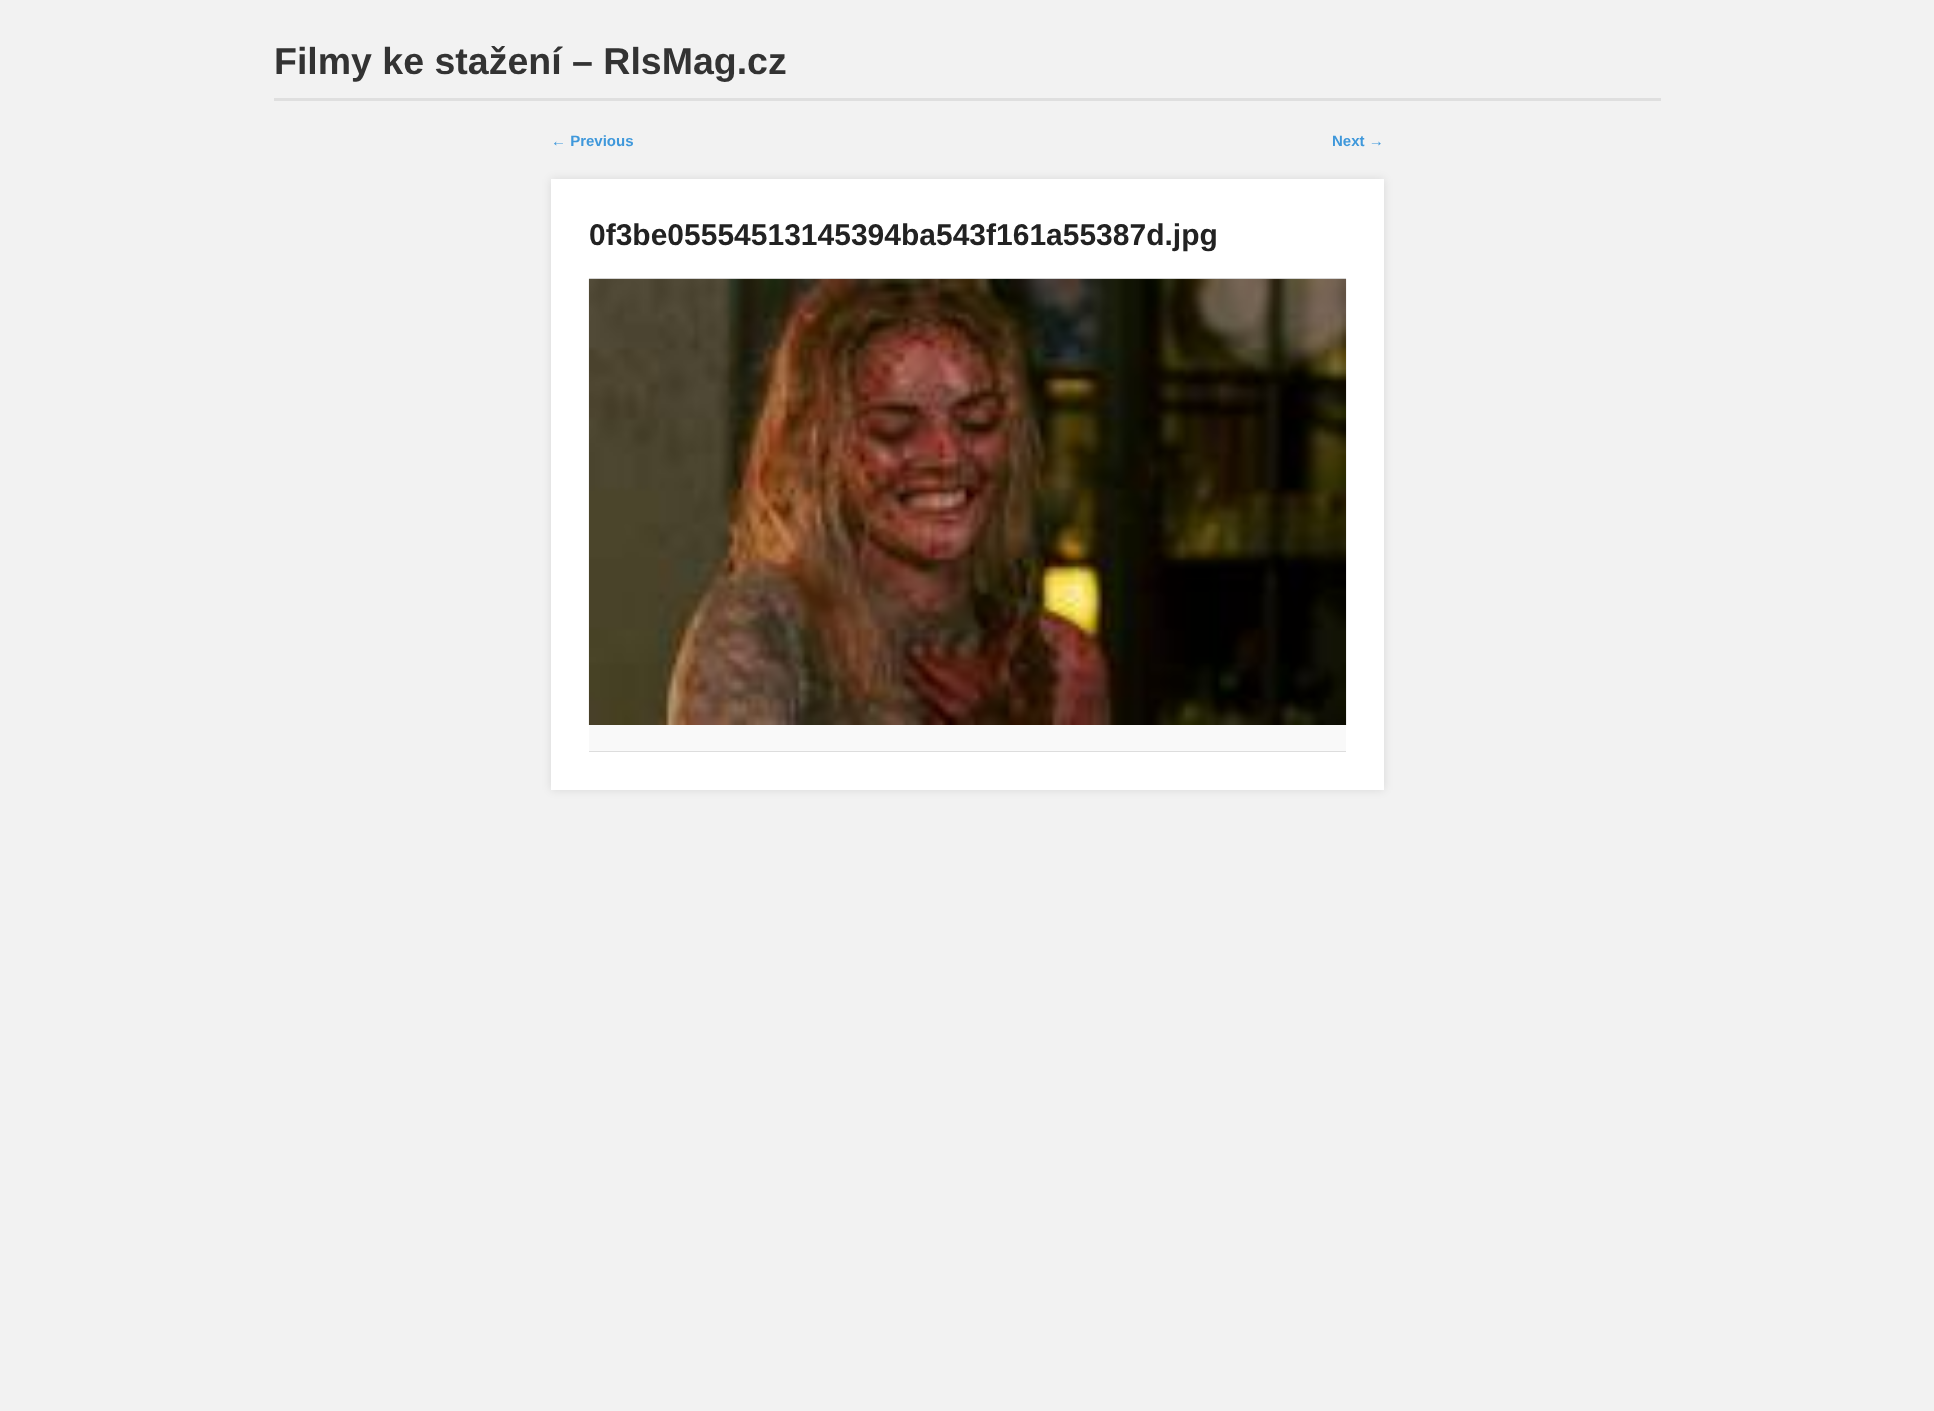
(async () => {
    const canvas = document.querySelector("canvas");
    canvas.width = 1934;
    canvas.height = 1411;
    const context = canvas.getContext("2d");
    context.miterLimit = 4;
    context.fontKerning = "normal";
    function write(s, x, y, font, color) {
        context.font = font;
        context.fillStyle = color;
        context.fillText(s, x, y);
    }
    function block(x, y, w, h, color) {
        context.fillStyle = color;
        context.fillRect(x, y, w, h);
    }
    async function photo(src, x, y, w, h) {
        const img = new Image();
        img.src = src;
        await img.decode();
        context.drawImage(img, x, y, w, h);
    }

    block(0, 0, 1934, 1411, "rgb(242, 242, 242)");
    block(274, 98, 1387, 3, "rgb(223, 223, 223)");
    write("Filmy ke stažení – RlsMag.cz", 274, 74, "bold 37.5px Liberation Sans", "rgb(51, 51, 51)");
    write("← Previous", 551, 146, "bold 15px Liberation Sans", "rgb(63, 152, 219)");
    write("Next →", 1332, 146, "bold 15px Liberation Sans", "rgb(63, 152, 219)");
    context.fillStyle = "rgba(0, 0, 0, 0.1)";
    context.filter = "blur(5px)";
    context.beginPath();
    context.rect(551, 179, 833, 611);
    context.fill();
    context.filter = "none";
    block(551, 179, 833, 611, "rgb(255, 255, 255)");
    write("0f3be05554513145394ba543f161a55387d.jpg", 589, 245, "bold 30px Liberation Sans", "rgb(34, 34, 34)");
    block(589, 725, 757, 26, "rgb(249, 249, 249)");
    block(589, 278, 757, 1, "rgb(221, 221, 221)");
    block(589, 751, 757, 1, "rgb(221, 221, 221)");
    await photo("media/1.png", 588, 278, 759, 447);
})();
